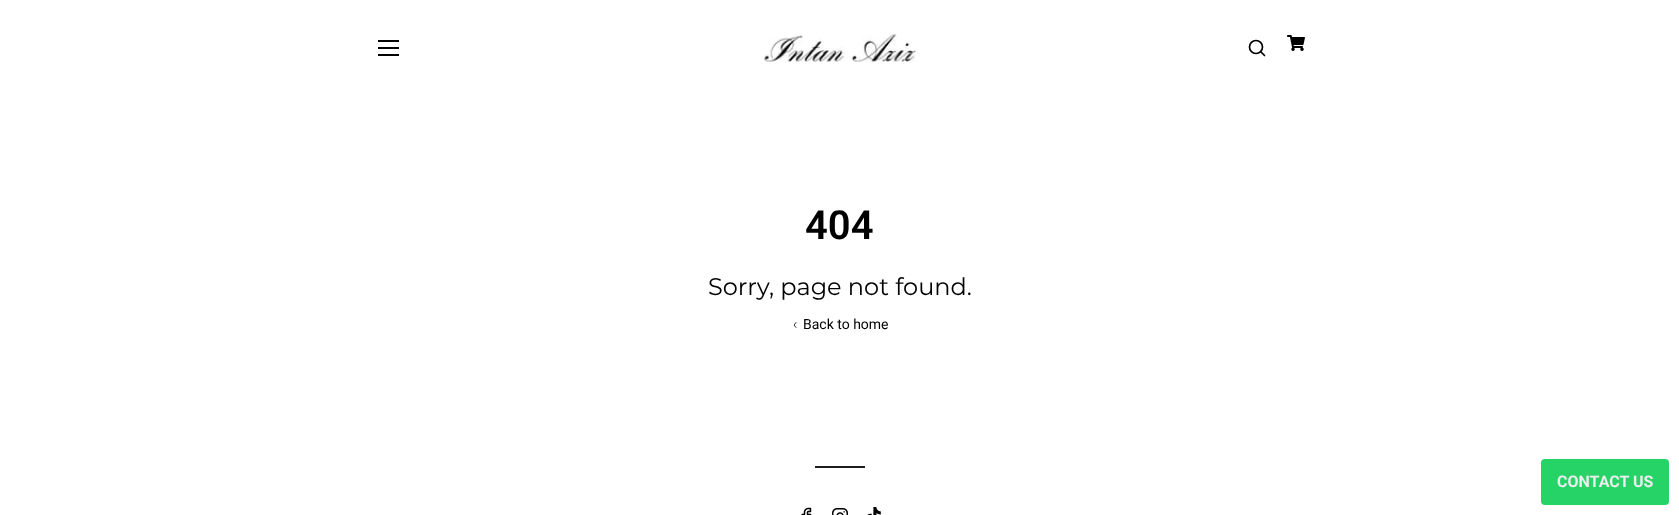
(async () => {
    const canvas = document.querySelector("canvas");
    canvas.width = 1679;
    canvas.height = 515;
    const context = canvas.getContext("2d");
    context.miterLimit = 4;
    context.fontKerning = "normal";
    function write(s, x, y, font, color) {
        context.font = font;
        context.fillStyle = color;
        context.fillText(s, x, y);
    }
    function block(x, y, w, h, color) {
        context.fillStyle = color;
        context.fillRect(x, y, w, h);
    }
    function card(x, y, w, h, r, color) {
        context.fillStyle = color;
        context.beginPath();
        context.roundRect(x, y, w, h, r);
        context.fill();
    }
    async function photo(src, x, y, w, h) {
        const img = new Image();
        img.src = src;
        await img.decode();
        context.drawImage(img, x, y, w, h);
    }

    block(0, 0, 1679, 515, "rgb(255, 255, 255)");
    block(378, 40, 21, 2, "rgb(0, 0, 0)");
    block(378, 47, 21, 2, "rgb(0, 0, 0)");
    block(378, 54, 21, 2, "rgb(0, 0, 0)");
    await photo("media/1.png", 762, 34, 156, 28);
    context.beginPath();
    context.arc(1256, 47, 6.5, 0, Math.PI * 2);
    context.strokeStyle = "rgb(0, 0, 0)";
    context.lineWidth = 1.7;
    context.stroke();
    await photo("media/2.png", 1287, 35, 18, 16);
    context.beginPath();
    context.moveTo(1264.5, 55.5);
    context.lineTo(1261, 52);
    context.lineCap = "round";
    context.lineJoin = "round";
    context.stroke();
    write("404", 805, 239, "600 40px Roboto", "rgb(0, 0, 0)");
    write("Sorry, page not found.", 708, 295, "24px Montserrat", "rgb(0, 0, 0)");
    write("Back to home", 803, 329, "14px Roboto", "rgb(0, 0, 0)");
    context.beginPath();
    context.moveTo(796, 327.5);
    context.lineTo(794, 325);
    context.lineTo(796, 322.5);
    context.lineWidth = 0.8;
    context.stroke();
    block(815, 466, 50, 2, "rgb(28, 29, 29)");
    await photo("media/3.png", 801, 507, 11, 8);
    await photo("media/4.png", 832, 508, 16, 7);
    await photo("media/5.png", 867, 507, 14, 8);
    card(1541, 459, 128, 46, 4, "rgb(37, 211, 102)");
    write("CONTACT US", 1557, 487, "bold 16px Roboto", "rgb(238, 238, 238)");
})();
